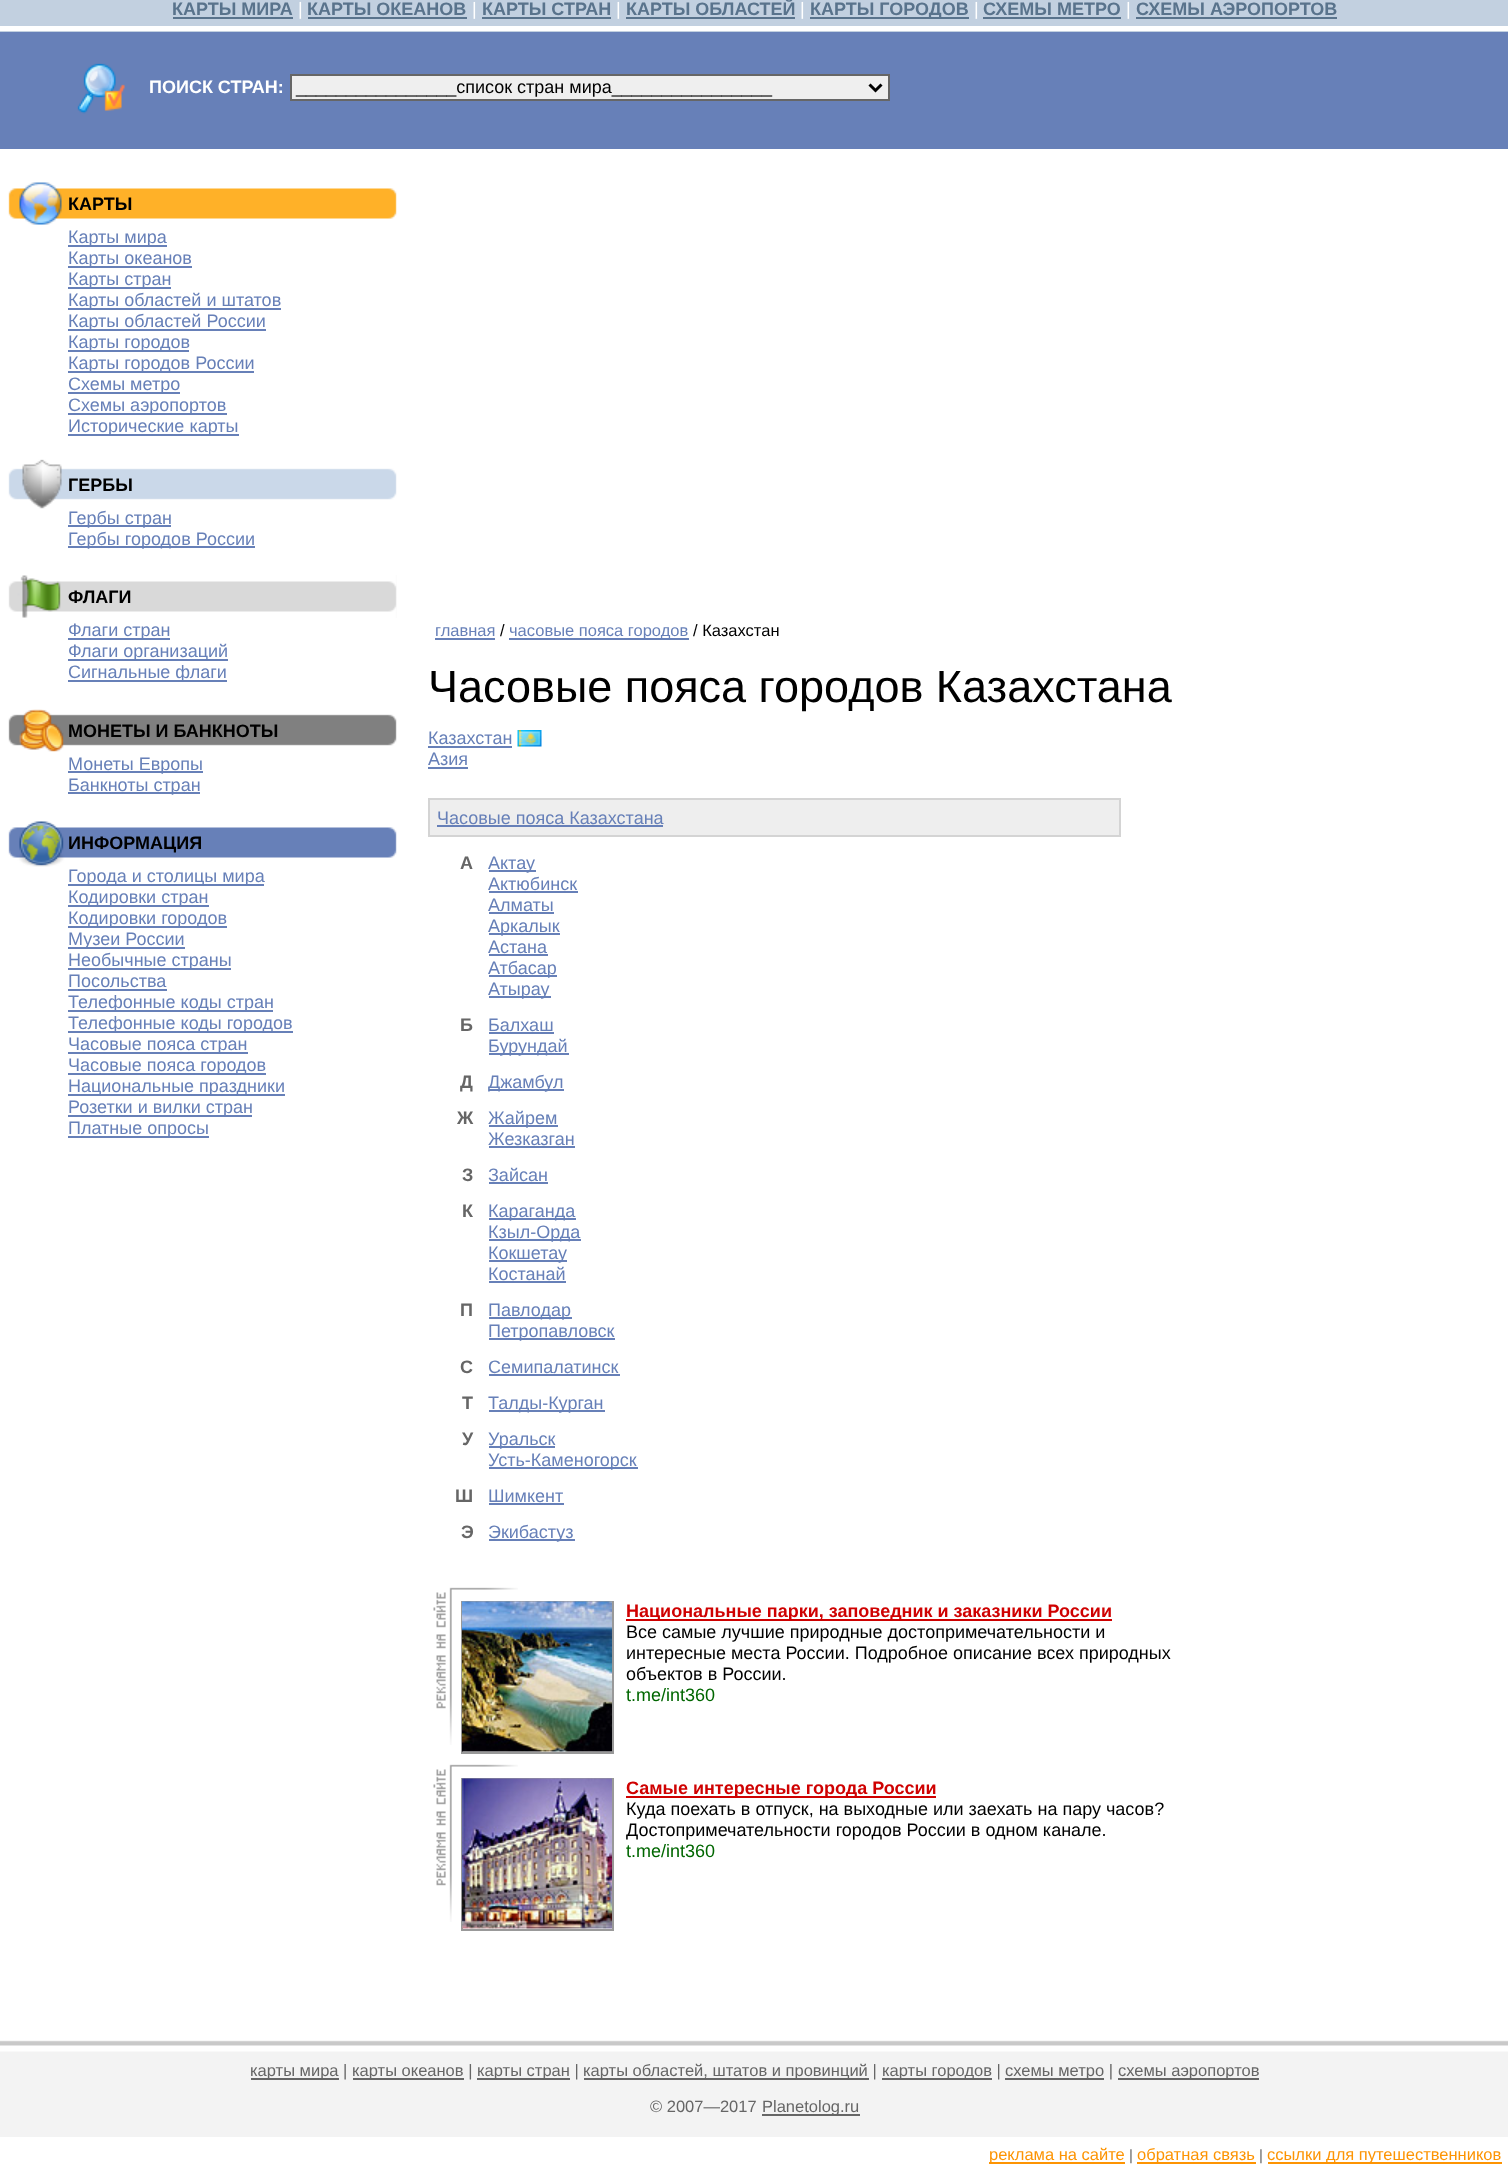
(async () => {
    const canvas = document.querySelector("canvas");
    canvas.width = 1508;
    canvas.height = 2170;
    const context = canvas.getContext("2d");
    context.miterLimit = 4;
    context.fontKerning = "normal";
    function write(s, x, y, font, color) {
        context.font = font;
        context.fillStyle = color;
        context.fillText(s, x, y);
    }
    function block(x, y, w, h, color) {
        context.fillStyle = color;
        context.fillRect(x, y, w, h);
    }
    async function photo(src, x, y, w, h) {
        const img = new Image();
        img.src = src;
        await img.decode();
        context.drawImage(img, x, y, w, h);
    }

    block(0, 0, 1508, 2170, "rgb(255, 255, 255)");
    block(0, 0, 1508, 32, "rgb(194, 208, 224)");
    block(0, 26, 1508, 5, "rgb(255, 255, 255)");
    write("КАРТЫ МИРА", 172, 15, "bold 18px Liberation Sans", "rgb(89, 115, 140)");
    block(173, 17, 120, 2, "rgb(89, 115, 140)");
    write("|", 298, 15, "18px Liberation Sans", "rgb(255, 255, 255)");
    write("КАРТЫ ОКЕАНОВ", 307, 15, "bold 18px Liberation Sans", "rgb(89, 115, 140)");
    block(308, 17, 159, 2, "rgb(89, 115, 140)");
    write("|", 472, 15, "18px Liberation Sans", "rgb(255, 255, 255)");
    write("КАРТЫ СТРАН", 482, 15, "bold 18px Liberation Sans", "rgb(89, 115, 140)");
    block(482, 17, 129, 2, "rgb(89, 115, 140)");
    write("|", 616, 15, "18px Liberation Sans", "rgb(255, 255, 255)");
    write("КАРТЫ ОБЛАСТЕЙ", 626, 15, "bold 18px Liberation Sans", "rgb(89, 115, 140)");
    block(626, 17, 169, 2, "rgb(89, 115, 140)");
    write("|", 800, 15, "18px Liberation Sans", "rgb(255, 255, 255)");
    block(810, 17, 159, 2, "rgb(89, 115, 140)");
    write("КАРТЫ ГОРОДОВ", 810, 15, "bold 18px Liberation Sans", "rgb(89, 115, 140)");
    write("|", 974, 15, "18px Liberation Sans", "rgb(255, 255, 255)");
    write("СХЕМЫ МЕТРО", 983, 15, "bold 18px Liberation Sans", "rgb(89, 115, 140)");
    block(983, 17, 138, 2, "rgb(89, 115, 140)");
    write("|", 1126, 15, "18px Liberation Sans", "rgb(255, 255, 255)");
    write("СХЕМЫ АЭРОПОРТОВ", 1136, 15, "bold 18px Liberation Sans", "rgb(89, 115, 140)");
    block(1136, 17, 201, 2, "rgb(89, 115, 140)");
    block(0, 32, 1508, 117, "rgb(103, 128, 184)");
    await photo("media/1.png", 77, 63, 48, 51);
    write("ПОИСК СТРАН:", 149, 93, "bold 18px Liberation Sans", "rgb(255, 255, 255)");
    context.fillStyle = "rgb(239, 239, 239)";
    context.beginPath();
    context.rect(291, 75, 598, 25);
    context.fill();
    context.strokeStyle = "rgb(102, 102, 102)";
    context.lineWidth = 2;
    context.stroke();
    context.beginPath();
    context.moveTo(869.5, 84.5);
    context.lineTo(875.5, 90.5);
    context.lineTo(881.5, 84.5);
    context.strokeStyle = "rgb(0, 0, 0)";
    context.lineWidth = 3;
    context.stroke();
    write("________________список стран мира________________", 296, 93, "18px Liberation Sans", "rgb(0, 0, 0)");
    await photo("media/2.png", 8, 182, 389, 43);
    write("КАРТЫ", 68, 210, "bold 18px Liberation Sans", "rgb(0, 0, 0)");
    block(68, 245, 99, 2, "rgb(103, 128, 184)");
    write("Карты мира", 68, 243, "18px Liberation Sans", "rgb(103, 128, 184)");
    block(68, 266, 124, 2, "rgb(103, 128, 184)");
    write("Карты океанов", 68, 264, "18px Liberation Sans", "rgb(103, 128, 184)");
    block(68, 287, 103, 2, "rgb(103, 128, 184)");
    write("Карты стран", 68, 285, "18px Liberation Sans", "rgb(103, 128, 184)");
    block(68, 308, 213, 2, "rgb(103, 128, 184)");
    write("Карты областей и штатов", 68, 306, "18px Liberation Sans", "rgb(103, 128, 184)");
    block(68, 329, 198, 2, "rgb(103, 128, 184)");
    write("Карты областей России", 68, 327, "18px Liberation Sans", "rgb(103, 128, 184)");
    block(68, 350, 121, 2, "rgb(103, 128, 184)");
    write("Карты городов", 68, 348, "18px Liberation Sans", "rgb(103, 128, 184)");
    block(68, 371, 186, 2, "rgb(103, 128, 184)");
    write("Карты городов России", 68, 369, "18px Liberation Sans", "rgb(103, 128, 184)");
    block(68, 392, 112, 2, "rgb(103, 128, 184)");
    write("Схемы метро", 68, 390, "18px Liberation Sans", "rgb(103, 128, 184)");
    block(68, 413, 159, 2, "rgb(103, 128, 184)");
    write("Схемы аэропортов", 68, 411, "18px Liberation Sans", "rgb(103, 128, 184)");
    block(68, 434, 171, 2, "rgb(103, 128, 184)");
    write("Исторические карты", 68, 432, "18px Liberation Sans", "rgb(103, 128, 184)");
    await photo("media/3.png", 8, 459, 389, 50);
    write("ГЕРБЫ", 68, 491, "bold 18px Liberation Sans", "rgb(0, 0, 0)");
    block(68, 525, 103, 2, "rgb(103, 128, 184)");
    write("Гербы стран", 68, 524, "18px Liberation Sans", "rgb(103, 128, 184)");
    block(68, 546, 187, 2, "rgb(103, 128, 184)");
    write("Гербы городов России", 68, 545, "18px Liberation Sans", "rgb(103, 128, 184)");
    await photo("media/4.png", 8, 575, 389, 43);
    write("ФЛАГИ", 68, 603, "bold 18px Liberation Sans", "rgb(0, 0, 0)");
    block(68, 638, 102, 2, "rgb(103, 128, 184)");
    write("Флаги стран", 68, 636, "18px Liberation Sans", "rgb(103, 128, 184)");
    block(68, 659, 160, 2, "rgb(103, 128, 184)");
    write("Флаги организаций", 68, 657, "18px Liberation Sans", "rgb(103, 128, 184)");
    block(68, 680, 159, 2, "rgb(103, 128, 184)");
    write("Сигнальные флаги", 68, 678, "18px Liberation Sans", "rgb(103, 128, 184)");
    await photo("media/5.png", 8, 709, 389, 43);
    write("МОНЕТЫ И БАНКНОТЫ", 68, 737, "bold 18px Liberation Sans", "rgb(0, 0, 0)");
    block(68, 771, 135, 2, "rgb(103, 128, 184)");
    write("Монеты Европы", 68, 770, "18px Liberation Sans", "rgb(103, 128, 184)");
    block(68, 792, 132, 2, "rgb(103, 128, 184)");
    write("Банкноты стран", 68, 791, "18px Liberation Sans", "rgb(103, 128, 184)");
    await photo("media/6.png", 8, 821, 389, 46);
    write("ИНФОРМАЦИЯ", 68, 849, "bold 18px Liberation Sans", "rgb(0, 0, 0)");
    block(68, 884, 196, 2, "rgb(103, 128, 184)");
    write("Города и столицы мира", 68, 882, "18px Liberation Sans", "rgb(103, 128, 184)");
    block(68, 905, 141, 2, "rgb(103, 128, 184)");
    write("Кодировки стран", 68, 903, "18px Liberation Sans", "rgb(103, 128, 184)");
    block(68, 926, 159, 2, "rgb(103, 128, 184)");
    write("Кодировки городов", 68, 924, "18px Liberation Sans", "rgb(103, 128, 184)");
    block(68, 947, 117, 2, "rgb(103, 128, 184)");
    write("Музеи России", 68, 945, "18px Liberation Sans", "rgb(103, 128, 184)");
    block(68, 968, 163, 2, "rgb(103, 128, 184)");
    write("Необычные страны", 68, 966, "18px Liberation Sans", "rgb(103, 128, 184)");
    write("Посольства", 68, 987, "18px Liberation Sans", "rgb(103, 128, 184)");
    block(68, 989, 99, 2, "rgb(103, 128, 184)");
    block(68, 1010, 205, 2, "rgb(103, 128, 184)");
    write("Телефонные коды стран", 68, 1008, "18px Liberation Sans", "rgb(103, 128, 184)");
    block(68, 1031, 225, 2, "rgb(103, 128, 184)");
    write("Телефонные коды городов", 68, 1029, "18px Liberation Sans", "rgb(103, 128, 184)");
    block(68, 1052, 180, 2, "rgb(103, 128, 184)");
    write("Часовые пояса стран", 68, 1050, "18px Liberation Sans", "rgb(103, 128, 184)");
    block(68, 1073, 198, 2, "rgb(103, 128, 184)");
    write("Часовые пояса городов", 68, 1071, "18px Liberation Sans", "rgb(103, 128, 184)");
    block(68, 1094, 217, 2, "rgb(103, 128, 184)");
    write("Национальные праздники", 68, 1092, "18px Liberation Sans", "rgb(103, 128, 184)");
    block(68, 1115, 184, 2, "rgb(103, 128, 184)");
    write("Розетки и вилки стран", 68, 1113, "18px Liberation Sans", "rgb(103, 128, 184)");
    block(68, 1136, 141, 2, "rgb(103, 128, 184)");
    write("Платные опросы", 68, 1134, "18px Liberation Sans", "rgb(103, 128, 184)");
    write("главная", 435, 636, "16.5px Liberation Sans", "rgb(103, 128, 184)");
    block(435, 638, 60, 2, "rgb(103, 128, 184)");
    write("/", 500, 636, "16.5px Liberation Sans", "rgb(0, 0, 0)");
    block(509, 638, 180, 2, "rgb(103, 128, 184)");
    write("часовые пояса городов", 509, 636, "16.5px Liberation Sans", "rgb(103, 128, 184)");
    write("/ Казахстан", 693, 636, "16.5px Liberation Sans", "rgb(0, 0, 0)");
    write("Часовые пояса городов Казахстана", 428, 702, "45px Liberation Sans", "rgb(0, 0, 0)");
    write("Казахстан", 428, 744, "18px Liberation Sans", "rgb(103, 128, 184)");
    block(428, 746, 84, 2, "rgb(103, 128, 184)");
    await photo("media/7.png", 517, 730, 25, 17);
    write("Азия", 428, 765, "18px Liberation Sans", "rgb(103, 128, 184)");
    block(428, 767, 40, 2, "rgb(103, 128, 184)");
    context.fillStyle = "rgb(238, 238, 238)";
    context.beginPath();
    context.rect(429, 799, 691, 37);
    context.fill();
    context.strokeStyle = "rgb(212, 212, 212)";
    context.lineWidth = 2;
    context.stroke();
    write("Часовые пояса Казахстана", 437, 824, "18px Liberation Sans", "rgb(103, 128, 184)");
    block(437, 825, 226, 2, "rgb(103, 128, 184)");
    write("А", 460, 869, "bold 18px Liberation Sans", "rgb(102, 102, 102)");
    block(489, 870, 47, 2, "rgb(103, 128, 184)");
    write("Актау", 488, 869, "18px Liberation Sans", "rgb(103, 128, 184)");
    write("Актюбинск", 488, 890, "18px Liberation Sans", "rgb(103, 128, 184)");
    block(489, 891, 89, 2, "rgb(103, 128, 184)");
    write("Алматы", 488, 911, "18px Liberation Sans", "rgb(103, 128, 184)");
    block(489, 912, 65, 2, "rgb(103, 128, 184)");
    block(489, 933, 71, 2, "rgb(103, 128, 184)");
    write("Аркалык", 488, 932, "18px Liberation Sans", "rgb(103, 128, 184)");
    write("Астана", 488, 953, "18px Liberation Sans", "rgb(103, 128, 184)");
    block(489, 954, 59, 2, "rgb(103, 128, 184)");
    block(489, 975, 68, 2, "rgb(103, 128, 184)");
    write("Атбасар", 488, 974, "18px Liberation Sans", "rgb(103, 128, 184)");
    block(489, 996, 62, 2, "rgb(103, 128, 184)");
    write("Атырау", 488, 995, "18px Liberation Sans", "rgb(103, 128, 184)");
    write("Б", 460, 1031, "bold 18px Liberation Sans", "rgb(102, 102, 102)");
    write("Балхаш", 488, 1031, "18px Liberation Sans", "rgb(103, 128, 184)");
    block(489, 1032, 65, 2, "rgb(103, 128, 184)");
    block(489, 1053, 80, 2, "rgb(103, 128, 184)");
    write("Бурундай", 488, 1052, "18px Liberation Sans", "rgb(103, 128, 184)");
    write("Д", 460, 1088, "bold 18px Liberation Sans", "rgb(102, 102, 102)");
    block(489, 1089, 75, 2, "rgb(103, 128, 184)");
    write("Джамбул", 488, 1088, "18px Liberation Sans", "rgb(103, 128, 184)");
    write("Ж", 457, 1124, "bold 18px Liberation Sans", "rgb(102, 102, 102)");
    block(489, 1125, 69, 2, "rgb(103, 128, 184)");
    write("Жайрем", 488, 1124, "18px Liberation Sans", "rgb(103, 128, 184)");
    write("Жезказган", 488, 1145, "18px Liberation Sans", "rgb(103, 128, 184)");
    block(489, 1146, 86, 2, "rgb(103, 128, 184)");
    write("З", 462, 1181, "bold 18px Liberation Sans", "rgb(102, 102, 102)");
    write("Зайсан", 488, 1181, "18px Liberation Sans", "rgb(103, 128, 184)");
    block(489, 1182, 59, 2, "rgb(103, 128, 184)");
    write("К", 462, 1217, "bold 18px Liberation Sans", "rgb(102, 102, 102)");
    block(489, 1218, 87, 2, "rgb(103, 128, 184)");
    write("Караганда", 488, 1217, "18px Liberation Sans", "rgb(103, 128, 184)");
    block(489, 1239, 92, 2, "rgb(103, 128, 184)");
    write("Кзыл-Орда", 488, 1238, "18px Liberation Sans", "rgb(103, 128, 184)");
    block(489, 1260, 78, 2, "rgb(103, 128, 184)");
    write("Кокшетау", 488, 1259, "18px Liberation Sans", "rgb(103, 128, 184)");
    write("Костанай", 488, 1280, "18px Liberation Sans", "rgb(103, 128, 184)");
    block(489, 1281, 77, 2, "rgb(103, 128, 184)");
    write("П", 460, 1316, "bold 18px Liberation Sans", "rgb(102, 102, 102)");
    block(489, 1317, 83, 2, "rgb(103, 128, 184)");
    write("Павлодар", 488, 1316, "18px Liberation Sans", "rgb(103, 128, 184)");
    block(489, 1338, 126, 2, "rgb(103, 128, 184)");
    write("Петропавловск", 488, 1337, "18px Liberation Sans", "rgb(103, 128, 184)");
    write("С", 460, 1373, "bold 18px Liberation Sans", "rgb(102, 102, 102)");
    write("Семипалатинск", 488, 1373, "18px Liberation Sans", "rgb(103, 128, 184)");
    block(489, 1374, 131, 2, "rgb(103, 128, 184)");
    write("Т", 462, 1409, "bold 18px Liberation Sans", "rgb(102, 102, 102)");
    block(489, 1410, 116, 2, "rgb(103, 128, 184)");
    write("Талды-Курган", 488, 1409, "18px Liberation Sans", "rgb(103, 128, 184)");
    write("У", 462, 1445, "bold 18px Liberation Sans", "rgb(102, 102, 102)");
    block(489, 1446, 66, 2, "rgb(103, 128, 184)");
    write("Уральск", 488, 1445, "18px Liberation Sans", "rgb(103, 128, 184)");
    block(489, 1467, 149, 2, "rgb(103, 128, 184)");
    write("Усть-Каменогорск", 488, 1466, "18px Liberation Sans", "rgb(103, 128, 184)");
    write("Ш", 455, 1502, "bold 18px Liberation Sans", "rgb(102, 102, 102)");
    write("Шимкент", 488, 1502, "18px Liberation Sans", "rgb(103, 128, 184)");
    block(489, 1503, 75, 2, "rgb(103, 128, 184)");
    write("Э", 461, 1538, "bold 18px Liberation Sans", "rgb(102, 102, 102)");
    block(489, 1539, 86, 2, "rgb(103, 128, 184)");
    write("Экибастуз", 488, 1538, "18px Liberation Sans", "rgb(103, 128, 184)");
    await photo("media/8.png", 433, 1587, 85, 158);
    context.strokeStyle = "rgb(153, 153, 153)";
    context.strokeRect(462, 1602, 151, 151);
    await photo("media/9.png", 462, 1601, 150, 151);
    block(626, 1619, 486, 2, "rgb(207, 1, 1)");
    write("Национальные парки, заповедник и заказники России", 626, 1617, "bold 18px Liberation Sans", "rgb(207, 1, 1)");
    write("Все самые лучшие природные достопримечательности и", 626, 1638, "18px Liberation Sans", "rgb(0, 0, 0)");
    write("интересные места России. Подробное описание всех природных", 626, 1659, "18px Liberation Sans", "rgb(0, 0, 0)");
    write("объектов в России.", 626, 1680, "18px Liberation Sans", "rgb(0, 0, 0)");
    write("t.me/int360", 626, 1701, "18px Liberation Sans", "rgb(0, 102, 0)");
    await photo("media/8.png", 433, 1764, 85, 158);
    context.strokeRect(462, 1779, 151, 151);
    await photo("media/10.png", 462, 1778, 150, 151);
    block(626, 1796, 310, 2, "rgb(207, 1, 1)");
    write("Самые интересные города России", 626, 1794, "bold 18px Liberation Sans", "rgb(207, 1, 1)");
    write("Куда поехать в отпуск, на выходные или заехать на пару часов?", 626, 1815, "18px Liberation Sans", "rgb(0, 0, 0)");
    write("Достопримечательности городов России в одном канале.", 626, 1836, "18px Liberation Sans", "rgb(0, 0, 0)");
    write("t.me/int360", 626, 1857, "18px Liberation Sans", "rgb(0, 102, 0)");
    await photo("media/11.png", 0, 2040, 1508, 97);
    block(251, 2078, 88, 2, "rgb(102, 102, 102)");
    write("карты мира |", 250, 2076, "16.5px Liberation Sans", "rgb(102, 102, 102)");
    block(353, 2078, 111, 2, "rgb(102, 102, 102)");
    write("карты океанов |", 352, 2076, "16.5px Liberation Sans", "rgb(102, 102, 102)");
    block(477, 2078, 93, 2, "rgb(102, 102, 102)");
    write("карты стран |", 477, 2076, "16.5px Liberation Sans", "rgb(102, 102, 102)");
    block(584, 2078, 285, 2, "rgb(102, 102, 102)");
    write("карты областей, штатов и провинций |", 583, 2076, "16.5px Liberation Sans", "rgb(102, 102, 102)");
    block(882, 2078, 110, 2, "rgb(102, 102, 102)");
    write("карты городов |", 882, 2076, "16.5px Liberation Sans", "rgb(102, 102, 102)");
    block(1005, 2078, 99, 2, "rgb(102, 102, 102)");
    write("схемы метро |", 1005, 2076, "16.5px Liberation Sans", "rgb(102, 102, 102)");
    block(1118, 2078, 141, 2, "rgb(102, 102, 102)");
    write("схемы аэропортов", 1118, 2076, "16.5px Liberation Sans", "rgb(102, 102, 102)");
    write("© 2007—2017", 650, 2112, "16.5px Liberation Sans", "rgb(102, 102, 102)");
    block(762, 2114, 98, 2, "rgb(102, 102, 102)");
    write("Planetolog.ru", 762, 2112, "16.5px Liberation Sans", "rgb(102, 102, 102)");
    block(989, 2162, 136, 2, "rgb(253, 148, 3)");
    write("реклама на сайте", 989, 2160, "16.5px Liberation Sans", "rgb(253, 148, 3)");
    write("|", 1129, 2160, "15px Liberation Sans", "rgb(102, 102, 102)");
    block(1137, 2162, 119, 2, "rgb(253, 148, 3)");
    write("обратная связь", 1137, 2160, "16.5px Liberation Sans", "rgb(253, 148, 3)");
    write("|", 1259, 2160, "15px Liberation Sans", "rgb(102, 102, 102)");
    block(1268, 2162, 234, 2, "rgb(253, 148, 3)");
    write("ссылки для путешественников", 1267, 2160, "16.5px Liberation Sans", "rgb(253, 148, 3)");
})();
